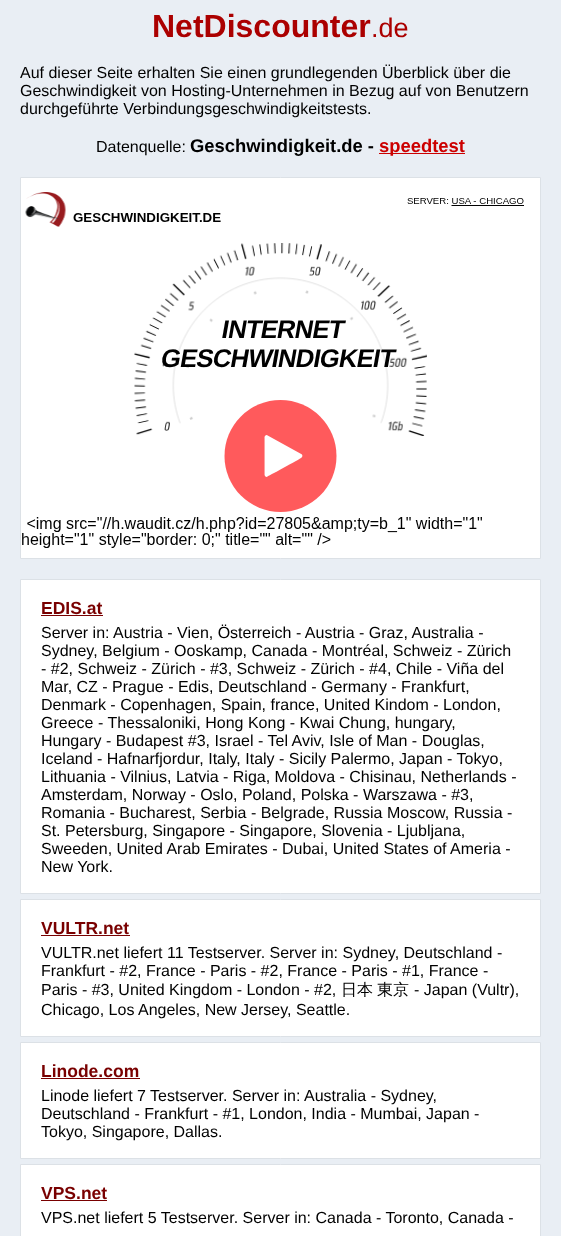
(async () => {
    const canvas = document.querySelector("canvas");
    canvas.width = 561;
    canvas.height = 1236;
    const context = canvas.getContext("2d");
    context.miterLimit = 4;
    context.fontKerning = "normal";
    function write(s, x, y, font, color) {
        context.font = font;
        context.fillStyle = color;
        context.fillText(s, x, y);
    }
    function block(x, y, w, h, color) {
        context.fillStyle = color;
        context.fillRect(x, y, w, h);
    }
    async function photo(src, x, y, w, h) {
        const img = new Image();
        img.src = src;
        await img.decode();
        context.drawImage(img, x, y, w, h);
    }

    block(0, 0, 561, 1236, "rgb(233, 238, 244)");
    write("NetDiscounter", 152, 37, "bold 32px Liberation Sans", "rgb(171, 0, 0)");
    write(".de", 371, 37, "27px Liberation Sans", "rgb(171, 0, 0)");
    write("Auf dieser Seite erhalten Sie einen grundlegenden Überblick über die", 20, 78, "16px Liberation Sans", "rgb(0, 0, 0)");
    write("Geschwindigkeit von Hosting-Unternehmen in Bezug auf von Benutzern", 20, 96, "16px Liberation Sans", "rgb(0, 0, 0)");
    write("durchgeführte Verbindungsgeschwindigkeitstests.", 20, 114, "16px Liberation Sans", "rgb(0, 0, 0)");
    write("Datenquelle:", 96, 152, "16px Liberation Sans", "rgb(0, 0, 0)");
    write("Geschwindigkeit.de -", 190, 152, "bold 18.4px Liberation Sans", "rgb(0, 0, 0)");
    block(379, 153, 86, 1, "rgb(204, 0, 0)");
    write("speedtest", 379, 152, "bold 18.4px Liberation Sans", "rgb(204, 0, 0)");
    context.fillStyle = "rgb(255, 255, 255)";
    context.beginPath();
    context.rect(20.5, 177.5, 520, 381);
    context.fill();
    context.strokeStyle = "rgb(220, 225, 230)";
    context.stroke();
    await photo("media/1.png", 22, 192, 502, 356);
    context.beginPath();
    context.rect(20.5, 579.5, 520, 314);
    context.fill();
    context.stroke();
    write("EDIS.at", 41, 614, "bold 17.5px Liberation Sans", "rgb(121, 0, 0)");
    block(41, 615, 62, 1, "rgb(121, 0, 0)");
    write("Server in: Austria - Vien, Österreich - Austria - Graz, Australia -", 41, 638, "16px Liberation Sans", "rgb(0, 0, 0)");
    write("Sydney, Belgium - Ooskamp, Canada - Montréal, Schweiz - Zürich", 41, 656, "16px Liberation Sans", "rgb(0, 0, 0)");
    write("- #2, Schweiz - Zürich - #3, Schweiz - Zürich - #4, Chile - Viña del", 41, 674, "16px Liberation Sans", "rgb(0, 0, 0)");
    write("Mar, CZ - Prague - Edis, Deutschland - Germany - Frankfurt,", 41, 692, "16px Liberation Sans", "rgb(0, 0, 0)");
    write("Denmark - Copenhagen, Spain, france, United Kindom - London,", 41, 710, "16px Liberation Sans", "rgb(0, 0, 0)");
    write("Greece - Thessaloniki, Hong Kong - Kwai Chung, hungary,", 41, 728, "16px Liberation Sans", "rgb(0, 0, 0)");
    write("Hungary - Budapest #3, Israel - Tel Aviv, Isle of Man - Douglas,", 41, 746, "16px Liberation Sans", "rgb(0, 0, 0)");
    write("Iceland - Hafnarfjordur, Italy, Italy - Sicily Palermo, Japan - Tokyo,", 41, 764, "16px Liberation Sans", "rgb(0, 0, 0)");
    write("Lithuania - Vilnius, Latvia - Riga, Moldova - Chisinau, Netherlands -", 41, 782, "16px Liberation Sans", "rgb(0, 0, 0)");
    write("Amsterdam, Norway - Oslo, Poland, Polska - Warszawa - #3,", 41, 800, "16px Liberation Sans", "rgb(0, 0, 0)");
    write("Romania - Bucharest, Serbia - Belgrade, Russia Moscow, Russia -", 41, 818, "16px Liberation Sans", "rgb(0, 0, 0)");
    write("St. Petersburg, Singapore - Singapore, Slovenia - Ljubljana,", 41, 836, "16px Liberation Sans", "rgb(0, 0, 0)");
    write("Sweeden, United Arab Emirates - Dubai, United States of Ameria -", 41, 854, "16px Liberation Sans", "rgb(0, 0, 0)");
    write("New York.", 41, 872, "16px Liberation Sans", "rgb(0, 0, 0)");
    context.fillStyle = "rgb(255, 255, 255)";
    context.beginPath();
    context.rect(20.5, 899.5, 520, 137);
    context.fill();
    context.stroke();
    write("VULTR.net", 41, 934, "bold 17.5px Liberation Sans", "rgb(121, 0, 0)");
    block(41, 935, 89, 1, "rgb(121, 0, 0)");
    write("VULTR.net liefert 11 Testserver. Server in: Sydney, Deutschland -", 41, 958, "16px Liberation Sans", "rgb(0, 0, 0)");
    write("Frankfurt - #2, France - Paris - #2, France - Paris - #1, France -", 41, 976, "16px Liberation Sans", "rgb(0, 0, 0)");
    write("Paris - #3, United Kingdom - London - #2,", 41, 995, "16px Liberation Sans", "rgb(0, 0, 0)");
    write("日本", 341, 995, "500 16px WenQuanYi Zen Hei", "rgb(0, 0, 0)");
    write("東京", 377, 995, "500 16px WenQuanYi Zen Hei", "rgb(0, 0, 0)");
    write("- Japan (Vultr),", 414, 995, "16px Liberation Sans", "rgb(0, 0, 0)");
    write("Chicago, Los Angeles, New Jersey, Seattle.", 41, 1015, "16px Liberation Sans", "rgb(0, 0, 0)");
    context.fillStyle = "rgb(255, 255, 255)";
    context.beginPath();
    context.rect(20.5, 1042.5, 520, 116);
    context.fill();
    context.stroke();
    write("Linode.com", 41, 1077, "bold 17.5px Liberation Sans", "rgb(121, 0, 0)");
    block(41, 1078, 99, 1, "rgb(121, 0, 0)");
    write("Linode liefert 7 Testserver. Server in: Australia - Sydney,", 41, 1101, "16px Liberation Sans", "rgb(0, 0, 0)");
    write("Deutschland - Frankfurt - #1, London, India - Mumbai, Japan -", 41, 1119, "16px Liberation Sans", "rgb(0, 0, 0)");
    write("Tokyo, Singapore, Dallas.", 41, 1137, "16px Liberation Sans", "rgb(0, 0, 0)");
    context.fillStyle = "rgb(255, 255, 255)";
    context.beginPath();
    context.rect(20.5, 1164.5, 520, 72);
    context.fill();
    context.stroke();
    write("VPS.net", 41, 1199, "bold 17.5px Liberation Sans", "rgb(121, 0, 0)");
    block(41, 1200, 66, 1, "rgb(121, 0, 0)");
    write("VPS.net liefert 5 Testserver. Server in: Canada - Toronto, Canada -", 41, 1223, "16px Liberation Sans", "rgb(0, 0, 0)");
})();
